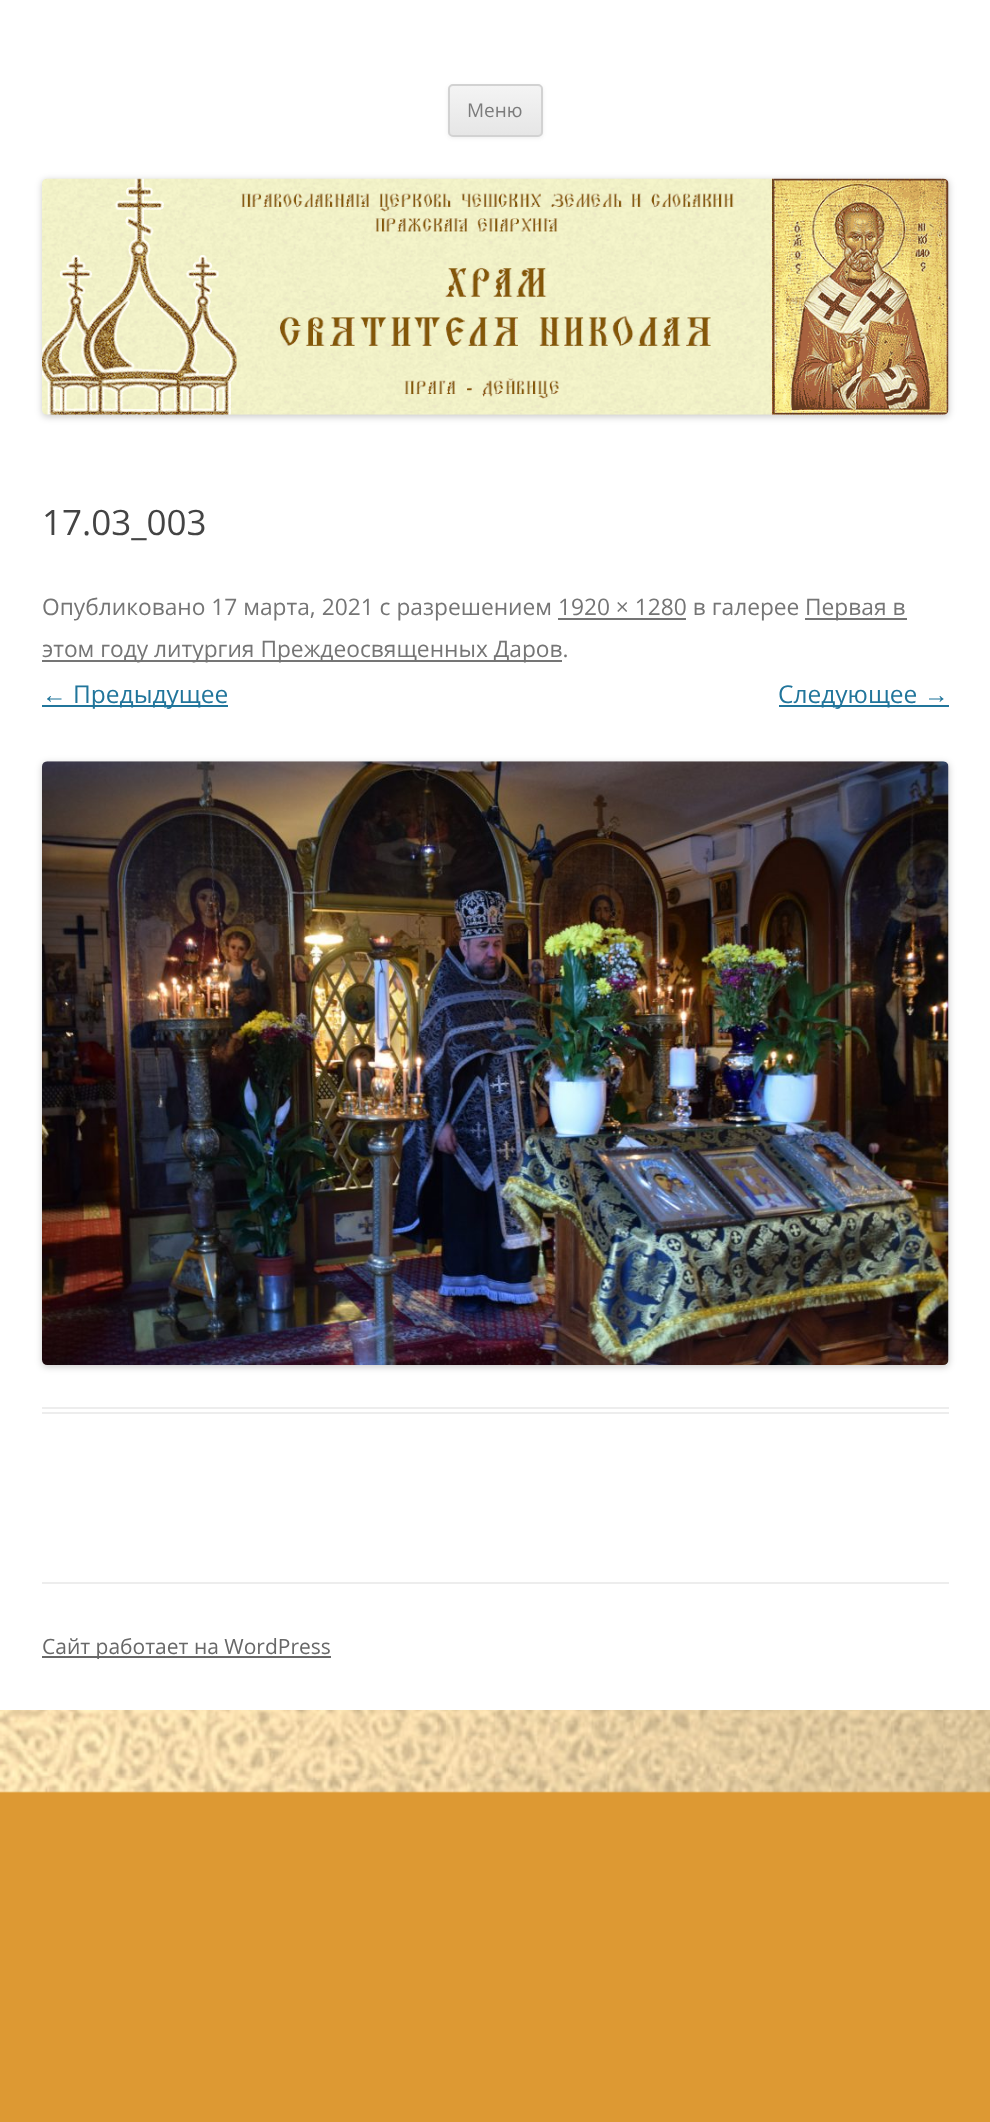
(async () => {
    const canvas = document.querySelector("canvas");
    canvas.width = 990;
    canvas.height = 2122;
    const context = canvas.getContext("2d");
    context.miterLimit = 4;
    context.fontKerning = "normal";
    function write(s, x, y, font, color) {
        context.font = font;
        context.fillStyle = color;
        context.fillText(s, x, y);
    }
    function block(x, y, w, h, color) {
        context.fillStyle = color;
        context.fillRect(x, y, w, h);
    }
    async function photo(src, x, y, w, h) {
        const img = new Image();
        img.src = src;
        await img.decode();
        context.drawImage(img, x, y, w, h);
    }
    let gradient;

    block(0, 0, 990, 2122, "rgb(221, 153, 51)");
    await photo("media/1.png", 0, 1710, 990, 83);
    block(0, 0, 990, 1710, "rgb(255, 255, 255)");
    context.fillStyle = "rgba(64, 64, 64, 0.1)";
    context.filter = "blur(2px)";
    context.beginPath();
    context.roundRect(448, 86, 95, 52, 5);
    context.fill();
    context.filter = "none";
    context.save();
    context.beginPath();
    context.roundRect(448, 84, 95, 53, 5);
    context.clip();
    gradient = context.createLinearGradient(495, 86, 495, 135);
    gradient.addColorStop(0, "rgb(244, 244, 244)");
    gradient.addColorStop(1, "rgb(230, 230, 230)");
    context.fillStyle = gradient;
    context.fillRect(448, 86, 95, 49);
    context.restore();
    context.beginPath();
    context.roundRect(449, 85, 93, 51, 4);
    context.strokeStyle = "rgb(210, 210, 210)";
    context.lineWidth = 2;
    context.stroke();
    write("Меню", 467, 117, "19px Open Sans", "rgb(124, 124, 124)");
    context.fillStyle = "rgba(0, 0, 0, 0.2)";
    context.filter = "blur(3.5px)";
    context.beginPath();
    context.roundRect(42, 180, 907, 237, 5);
    context.fill();
    context.filter = "none";
    await photo("media/2.png", 42, 178, 907, 237);
    block(42, 1407, 907, 2, "rgb(237, 237, 237)");
    block(42, 1412, 907, 2, "rgb(237, 237, 237)");
    write("17.03_003", 42, 535, "35px Open Sans", "rgb(68, 68, 68)");
    write("Опубликовано 17 марта, 2021 с разрешением 1920 × 1280 в галерее", 42, 615, "22.75px Open Sans", "rgb(117, 117, 117)");
    block(805, 618, 102, 2, "rgb(117, 117, 117)");
    write("Первая в", 805, 615, "22.75px Open Sans", "rgb(117, 117, 117)");
    block(558, 618, 128, 2, "rgb(117, 117, 117)");
    block(42, 660, 520, 2, "rgb(117, 117, 117)");
    write("этом году литургия Преждеосвященных Даров.", 42, 657, "22.75px Open Sans", "rgb(117, 117, 117)");
    write("←", 42, 703, "24.5px Liberation Sans", "rgb(33, 117, 155)");
    block(42, 705, 186, 2, "rgb(33, 117, 155)");
    write("Предыдущее", 73, 703, "24.5px Open Sans", "rgb(33, 117, 155)");
    block(779, 705, 170, 2, "rgb(33, 117, 155)");
    write("Следующее", 778, 703, "24.5px Open Sans", "rgb(33, 117, 155)");
    write("→", 924, 703, "24.5px Liberation Sans", "rgb(33, 117, 155)");
    context.fillStyle = "rgba(0, 0, 0, 0.2)";
    context.filter = "blur(3.5px)";
    context.beginPath();
    context.roundRect(42, 763, 907, 604, 5);
    context.fill();
    context.filter = "none";
    await photo("media/3.png", 42, 761, 907, 604);
    block(42, 1582, 907, 2, "rgb(237, 237, 237)");
    block(42, 1656, 289, 2, "rgb(104, 104, 104)");
    write("Сайт работает на WordPress", 42, 1654, "21px Open Sans", "rgb(104, 104, 104)");
})();
